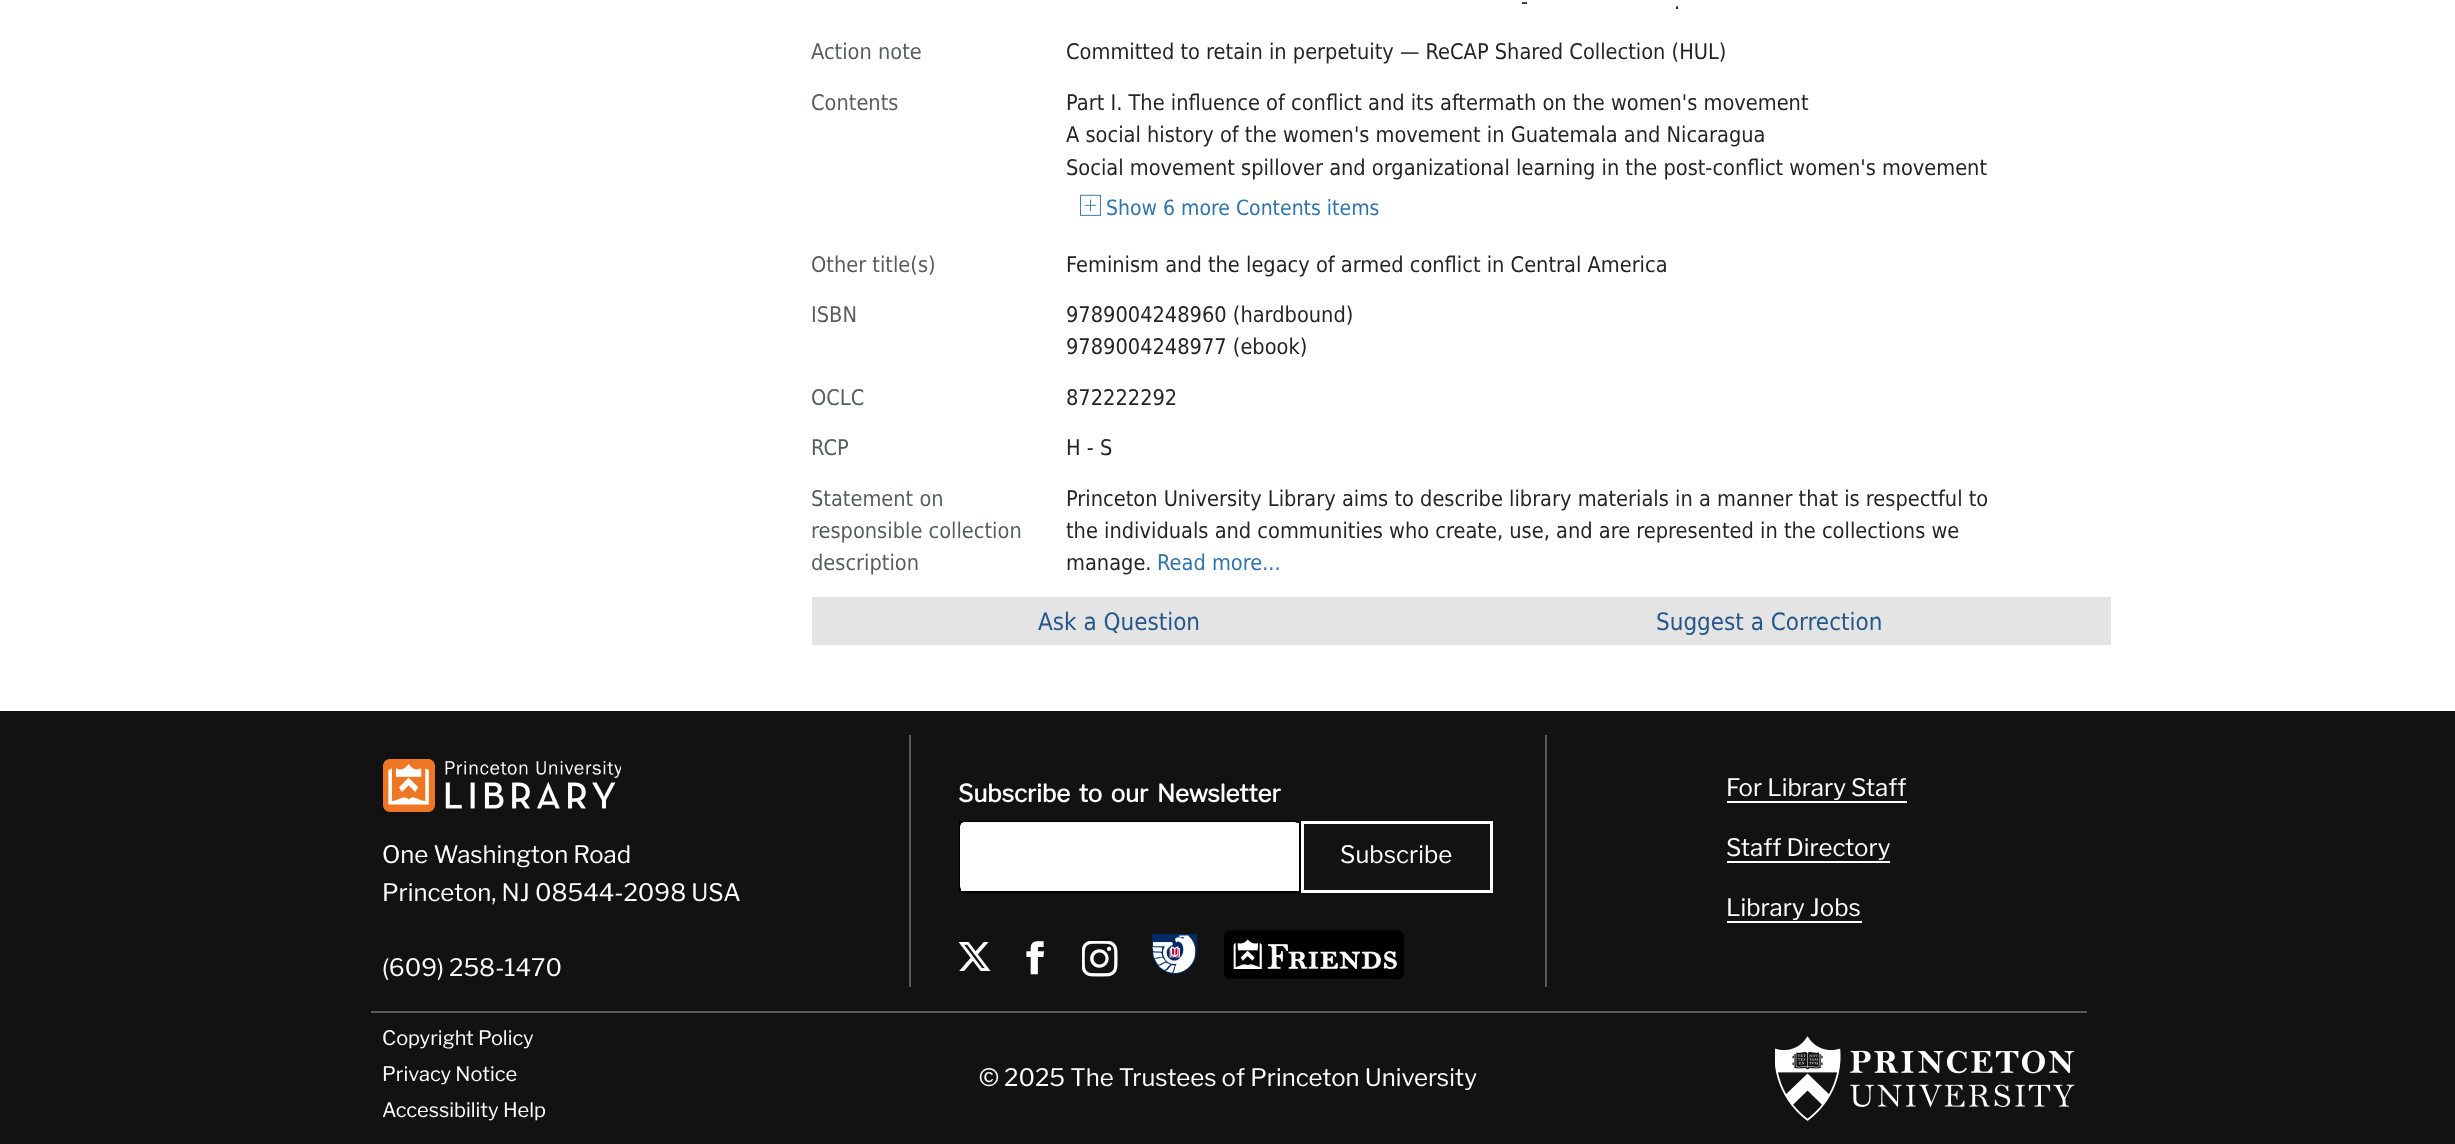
(async () => {
    const canvas = document.querySelector("canvas");
    canvas.width = 2455;
    canvas.height = 1144;
    const context = canvas.getContext("2d");
    context.miterLimit = 4;
    context.fontKerning = "normal";
    function write(s, x, y, font, color) {
        context.font = font;
        context.fillStyle = color;
        context.fillText(s, x, y);
    }
    function block(x, y, w, h, color) {
        context.fillStyle = color;
        context.fillRect(x, y, w, h);
    }
    function card(x, y, w, h, r, color) {
        context.fillStyle = color;
        context.beginPath();
        context.roundRect(x, y, w, h, r);
        context.fill();
    }
    async function photo(src, x, y, w, h) {
        const img = new Image();
        img.src = src;
        await img.decode();
        context.drawImage(img, x, y, w, h);
    }

    block(0, 0, 2455, 1144, "rgb(255, 255, 255)");
    write("-", 1521, 9, "21.6px DejaVu Sans", "rgb(36, 36, 36)");
    write(".", 1674, 9, "21.6px DejaVu Sans", "rgb(36, 36, 36)");
    write("Action note", 811, 59, "21.6px DejaVu Sans", "rgb(89, 92, 95)");
    write("Committed to retain in perpetuity — ReCAP Shared Collection (HUL)", 1066, 59, "21.6px DejaVu Sans", "rgb(36, 36, 36)");
    write("Contents", 811, 110, "21.6px DejaVu Sans", "rgb(89, 92, 95)");
    write("Part I. The influence of conflict and its aftermath on the women's movement", 1066, 110, "21.6px DejaVu Sans", "rgb(36, 36, 36)");
    write("A social history of the women's movement in Guatemala and Nicaragua", 1066, 142, "21.6px DejaVu Sans", "rgb(36, 36, 36)");
    write("Social movement spillover and organizational learning in the post-conflict women's movement", 1066, 175, "21.6px DejaVu Sans", "rgb(36, 36, 36)");
    await photo("media/1.png", 1080, 194, 21, 22);
    write("Show 6 more Contents items", 1106, 215, "21px DejaVu Sans", "rgb(48, 114, 171)");
    write("Other title(s)", 811, 272, "21.6px DejaVu Sans", "rgb(89, 92, 95)");
    write("Feminism and the legacy of armed conflict in Central America", 1066, 272, "21.6px DejaVu Sans", "rgb(36, 36, 36)");
    write("ISBN", 811, 322, "21.6px DejaVu Sans", "rgb(89, 92, 95)");
    write("9789004248960 (hardbound)", 1066, 322, "21.6px DejaVu Sans", "rgb(36, 36, 36)");
    write("9789004248977 (ebook)", 1066, 354, "21.6px DejaVu Sans", "rgb(36, 36, 36)");
    write("OCLC", 811, 405, "21.6px DejaVu Sans", "rgb(89, 92, 95)");
    write("872222292", 1066, 405, "21.6px DejaVu Sans", "rgb(36, 36, 36)");
    write("RCP", 811, 455, "21.6px DejaVu Sans", "rgb(89, 92, 95)");
    write("H - S", 1066, 455, "21.6px DejaVu Sans", "rgb(36, 36, 36)");
    write("Statement on", 811, 506, "21.6px DejaVu Sans", "rgb(89, 92, 95)");
    write("responsible collection", 811, 538, "21.6px DejaVu Sans", "rgb(89, 92, 95)");
    write("description", 811, 570, "21.6px DejaVu Sans", "rgb(89, 92, 95)");
    write("Princeton University Library aims to describe library materials in a manner that is respectful to", 1066, 506, "21.6px DejaVu Sans", "rgb(36, 36, 36)");
    write("the individuals and communities who create, use, and are represented in the collections we", 1066, 538, "21.6px DejaVu Sans", "rgb(36, 36, 36)");
    write("manage.", 1066, 570, "21.6px DejaVu Sans", "rgb(36, 36, 36)");
    write("Read more...", 1157, 570, "21.6px DejaVu Sans", "rgb(48, 114, 171)");
    block(812, 597, 1299, 48, "rgb(228, 228, 228)");
    write("Ask a Question", 1038, 630, "24px DejaVu Sans", "rgb(35, 87, 139)");
    write("Suggest a Correction", 1656, 630, "24px DejaVu Sans", "rgb(35, 87, 139)");
    block(0, 711, 2455, 433, "rgb(18, 18, 18)");
    block(1545, 735, 2, 252, "rgb(89, 89, 89)");
    context.wordSpacing = "3.5px";
    write("Subscribe to our Newsletter", 958, 802, "bold 24px Libre Franklin", "rgb(255, 255, 255)");
    context.beginPath();
    context.rect(960, 822, 340, 70);
    context.fill();
    context.strokeStyle = "rgb(0, 0, 0)";
    context.lineWidth = 2;
    context.stroke();
    card(960, 822, 339, 69, 5, "rgb(255, 255, 255)");
    context.strokeStyle = "rgb(255, 255, 255)";
    context.lineWidth = 3;
    context.strokeRect(1302.5, 822.5, 189, 69);
    context.wordSpacing = "0px";
    write("Subscribe", 1340, 863, "24px Libre Franklin", "rgb(255, 255, 255)");
    await photo("media/2.png", 959, 942, 32, 29);
    await photo("media/3.png", 1026, 941, 18, 34);
    await photo("media/4.png", 1082, 941, 36, 36);
    await photo("media/5.png", 1152, 934, 45, 40);
    await photo("media/6.png", 1224, 930, 180, 49);
    write("For Library Staff", 1726, 796, "24px Libre Franklin", "rgb(255, 255, 255)");
    block(1727, 801, 180, 2, "rgb(255, 255, 255)");
    write("Staff Directory", 1726, 856, "24px Libre Franklin", "rgb(255, 255, 255)");
    block(1727, 861, 163, 2, "rgb(255, 255, 255)");
    write("Library Jobs", 1726, 916, "24px Libre Franklin", "rgb(255, 255, 255)");
    block(1727, 921, 135, 2, "rgb(255, 255, 255)");
    block(909, 735, 2, 252, "rgb(89, 89, 89)");
    await photo("media/7.png", 383, 759, 238, 53);
    write("One Washington Road", 382, 863, "24px Libre Franklin", "rgb(255, 255, 255)");
    write("Princeton, NJ 08544-2098 USA", 382, 901, "24px Libre Franklin", "rgb(255, 255, 255)");
    write("(609) 258-1470", 382, 976, "24px Libre Franklin", "rgb(255, 255, 255)");
    block(371, 1011, 1716, 2, "rgb(89, 89, 89)");
    write("Copyright Policy", 382, 1045, "20px Libre Franklin", "rgb(255, 255, 255)");
    write("Privacy Notice", 382, 1081, "20px Libre Franklin", "rgb(255, 255, 255)");
    write("Accessibility Help", 382, 1117, "20px Libre Franklin", "rgb(255, 255, 255)");
    write("© 2025 The Trustees of Princeton University", 979, 1086, "24px Libre Franklin", "rgb(255, 255, 255)");
    await photo("media/8.png", 1775, 1036, 300, 85);
})();
